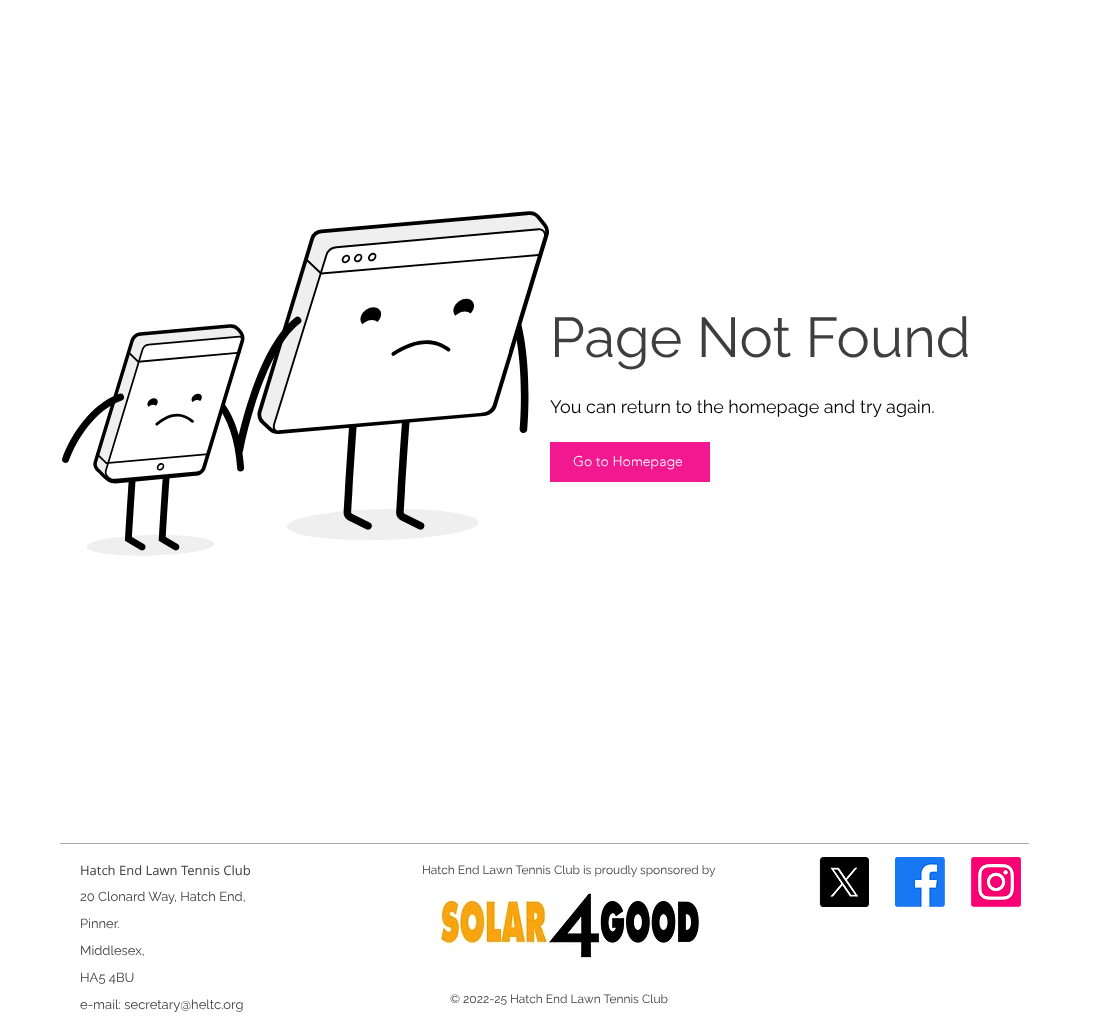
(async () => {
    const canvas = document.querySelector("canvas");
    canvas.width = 1099;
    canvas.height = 1031;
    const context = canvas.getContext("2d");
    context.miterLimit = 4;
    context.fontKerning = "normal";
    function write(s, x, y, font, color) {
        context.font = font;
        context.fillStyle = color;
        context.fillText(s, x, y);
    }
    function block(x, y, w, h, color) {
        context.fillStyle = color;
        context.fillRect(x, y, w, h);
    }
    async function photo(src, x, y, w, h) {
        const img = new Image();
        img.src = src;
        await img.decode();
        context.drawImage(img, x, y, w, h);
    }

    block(0, 0, 1099, 1031, "rgb(255, 255, 255)");
    await photo("media/1.png", 62, 211, 487, 345);
    write("Page Not Found", 550, 357, "56px Raleway", "rgb(62, 62, 62)");
    write("You can return to the homepage and try again.", 550, 413, "18px Raleway", "rgb(0, 0, 0)");
    block(550, 442, 160, 40, "rgb(242, 24, 144)");
    write("Go to Homepage", 573, 466, "300 14px 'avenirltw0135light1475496'", "rgb(255, 255, 255)");
    block(60, 843, 969, 1, "rgb(171, 171, 171)");
    write("Hatch End Lawn Tennis Club", 80, 875, "13px Open Sans", "rgb(62, 62, 62)");
    write("20 Clonard Way, Hatch End,", 80, 901, "13px Raleway", "rgb(62, 62, 62)");
    write("Pinner.", 80, 928, "13px Raleway", "rgb(62, 62, 62)");
    write("Middlesex,", 80, 955, "13px Raleway", "rgb(62, 62, 62)");
    write("HA5 4BU", 80, 982, "13px Raleway", "rgb(62, 62, 62)");
    write("e-mail: secretary@heltc.org", 80, 1009, "13px Raleway", "rgb(62, 62, 62)");
    write("Hatch End Lawn Tennis Club is proudly sponsored by", 422, 874, "12px Raleway", "rgb(62, 62, 62)");
    await photo("media/2.png", 819, 857, 50, 50);
    await photo("media/3.png", 895, 857, 50, 50);
    await photo("media/4.png", 971, 857, 50, 50);
    await photo("media/5.png", 435, 893, 264, 68);
    write("© 2022-25 Hatch End Lawn Tennis Club", 450, 1003, "12px Raleway", "rgb(62, 62, 62)");
})();
